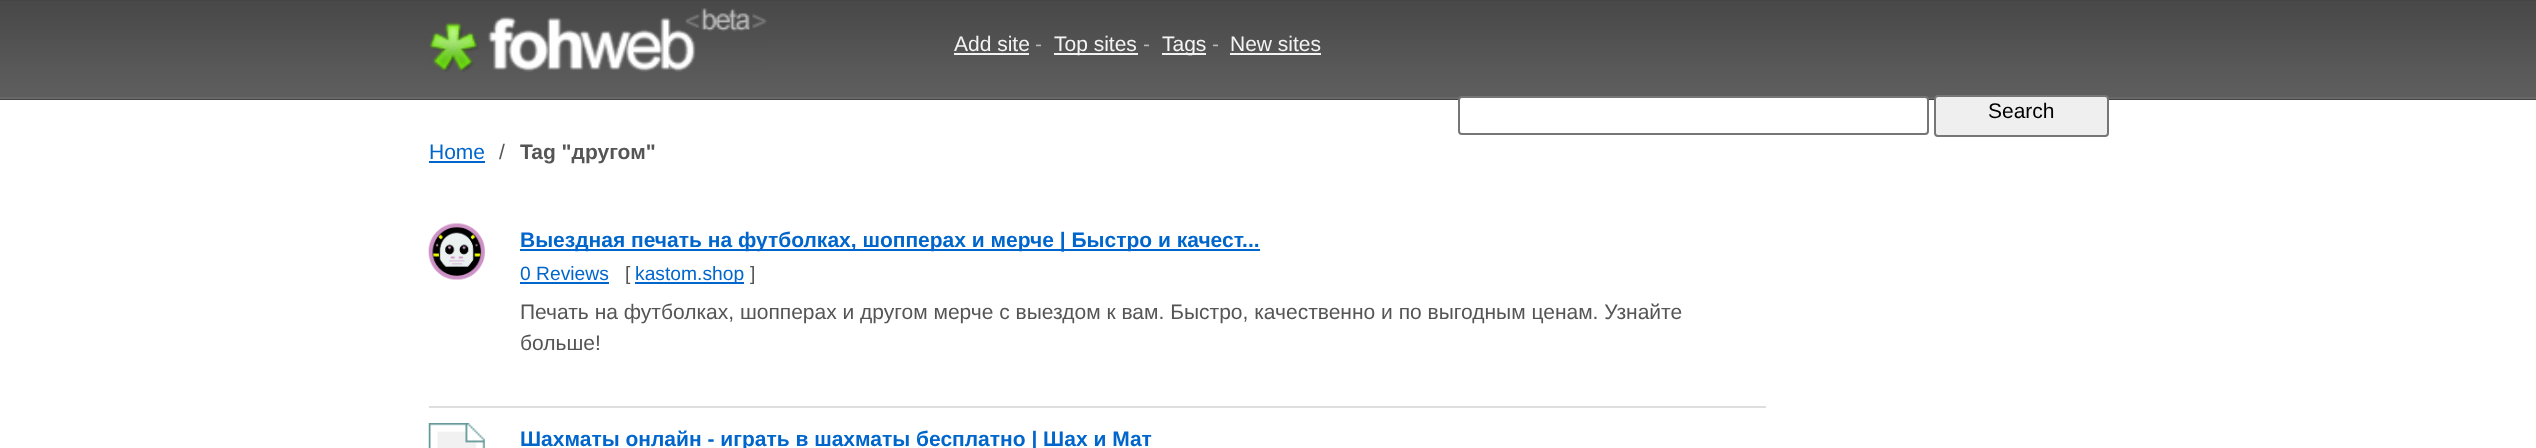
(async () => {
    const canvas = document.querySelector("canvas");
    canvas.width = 2536;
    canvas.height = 448;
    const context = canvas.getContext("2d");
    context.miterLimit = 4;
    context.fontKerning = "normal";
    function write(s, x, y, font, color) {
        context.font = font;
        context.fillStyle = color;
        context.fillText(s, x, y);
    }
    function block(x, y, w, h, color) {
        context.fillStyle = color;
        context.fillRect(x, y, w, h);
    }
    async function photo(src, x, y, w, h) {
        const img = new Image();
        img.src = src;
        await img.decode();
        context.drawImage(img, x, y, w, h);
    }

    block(0, 0, 2536, 448, "rgb(255, 255, 255)");
    block(0, 0, 2536, 100, "rgb(68, 68, 68)");
    await photo("media/1.png", 0, 1, 2536, 98);
    await photo("media/2.png", 429, 8, 338, 64);
    write("Add site", 954, 51, "21px Liberation Sans", "rgb(243, 243, 243)");
    block(954, 53, 75, 2, "rgb(243, 243, 243)");
    write("-", 1035, 51, "21px Liberation Sans", "rgb(182, 182, 182)");
    block(1054, 53, 84, 2, "rgb(243, 243, 243)");
    write("Top sites", 1054, 51, "21px Liberation Sans", "rgb(243, 243, 243)");
    write("-", 1143, 51, "21px Liberation Sans", "rgb(182, 182, 182)");
    block(1162, 53, 44, 2, "rgb(243, 243, 243)");
    write("Tags", 1162, 51, "21px Liberation Sans", "rgb(243, 243, 243)");
    write("-", 1212, 51, "21px Liberation Sans", "rgb(182, 182, 182)");
    write("New sites", 1230, 51, "21px Liberation Sans", "rgb(243, 243, 243)");
    block(1230, 53, 91, 2, "rgb(243, 243, 243)");
    context.fillStyle = "rgb(255, 255, 255)";
    context.beginPath();
    context.roundRect(1459, 97, 469, 37, 3);
    context.fill();
    context.strokeStyle = "rgb(118, 118, 118)";
    context.lineWidth = 2;
    context.stroke();
    context.fillStyle = "rgb(239, 239, 239)";
    context.beginPath();
    context.roundRect(1935, 96, 173, 40, 3);
    context.fill();
    context.stroke();
    write("Search", 1988, 118, "21px Liberation Sans", "rgb(0, 0, 0)");
    write("Home", 429, 159, "21px Liberation Sans", "rgb(0, 102, 204)");
    block(429, 161, 56, 2, "rgb(0, 102, 204)");
    write("/", 499, 159, "21px Liberation Sans", "rgb(85, 85, 85)");
    write("Tag \"другом\"", 520, 159, "bold 21px Liberation Sans", "rgb(85, 85, 85)");
    block(429, 406, 1337, 2, "rgb(222, 222, 222)");
    await photo("media/3.png", 428, 223, 57, 57);
    block(520, 249, 740, 2, "rgb(0, 102, 204)");
    write("Выездная печать на футболках, шопперах и мерче | Быстро и качест...", 520, 247, "bold 21px Liberation Sans", "rgb(0, 102, 204)");
    write("0 Reviews", 520, 280, "19.25px Liberation Sans", "rgb(0, 102, 204)");
    block(520, 282, 89, 2, "rgb(0, 102, 204)");
    write("[", 625, 280, "19.25px Liberation Sans", "rgb(85, 85, 85)");
    block(635, 282, 109, 2, "rgb(0, 102, 204)");
    write("kastom.shop", 635, 280, "19.25px Liberation Sans", "rgb(0, 102, 204)");
    write("]", 750, 280, "19.25px Liberation Sans", "rgb(85, 85, 85)");
    write("Печать на футболках, шопперах и другом мерче с выездом к вам. Быстро, качественно и по выгодным ценам. Узнайте", 520, 319, "21px Liberation Sans", "rgb(85, 85, 85)");
    write("больше!", 520, 350, "21px Liberation Sans", "rgb(85, 85, 85)");
    await photo("media/4.png", 428, 423, 57, 25);
    write("Шахматы онлайн - играть в шахматы бесплатно | Шах и Мат", 520, 446, "bold 21px Liberation Sans", "rgb(0, 102, 204)");
})();
